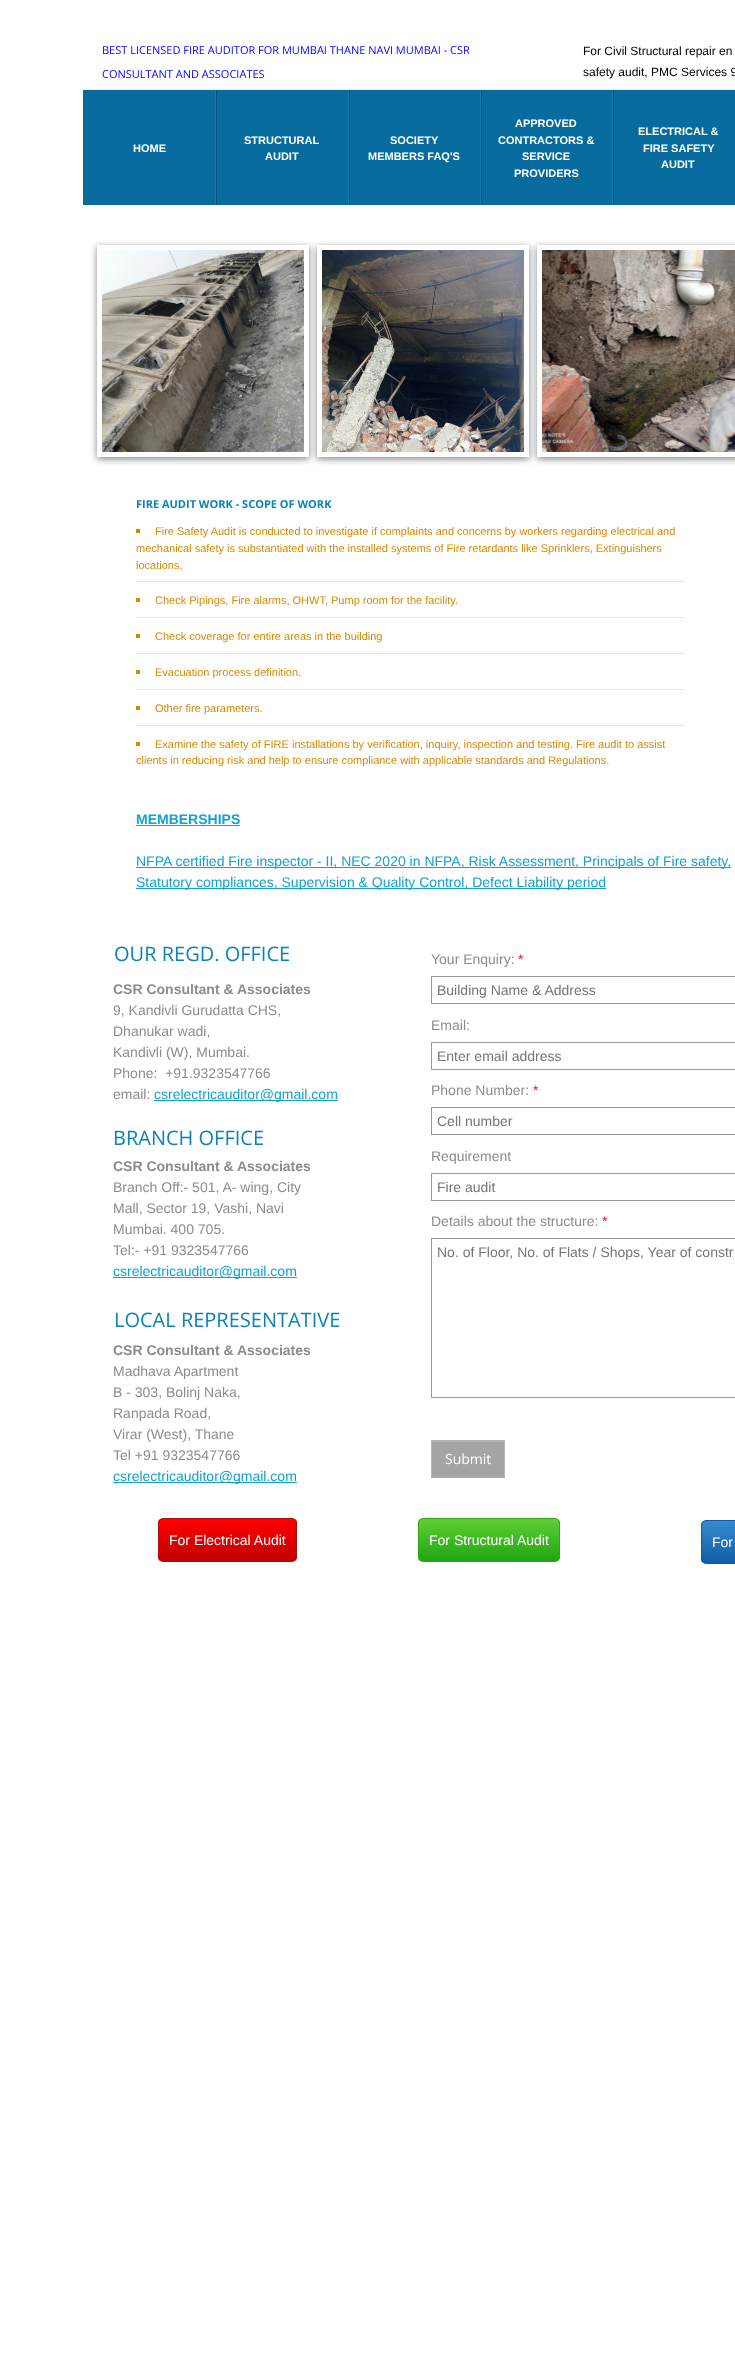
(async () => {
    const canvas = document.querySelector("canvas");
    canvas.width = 735;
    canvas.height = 2380;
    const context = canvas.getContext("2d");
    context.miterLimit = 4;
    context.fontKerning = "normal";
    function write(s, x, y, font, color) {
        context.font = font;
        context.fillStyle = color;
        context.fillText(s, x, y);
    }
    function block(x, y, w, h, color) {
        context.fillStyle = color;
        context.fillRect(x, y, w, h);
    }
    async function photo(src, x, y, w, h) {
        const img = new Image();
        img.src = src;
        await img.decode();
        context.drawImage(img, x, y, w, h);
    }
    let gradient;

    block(0, 0, 735, 2380, "rgb(255, 255, 255)");
    write("BEST LICENSED FIRE AUDITOR FOR MUMBAI THANE NAVI MUMBAI - CSR", 102, 54, "11px Open Sans", "rgb(0, 0, 255)");
    write("CONSULTANT AND ASSOCIATES", 102, 78, "11px Open Sans", "rgb(0, 0, 255)");
    write("For Civil Structural repair en", 583, 55, "12px Liberation Sans", "rgb(0, 0, 0)");
    write("safety audit, PMC Services 9", 583, 76, "12px Liberation Sans", "rgb(0, 0, 0)");
    block(83, 90, 652, 115, "rgb(7, 108, 157)");
    block(83, 89, 652, 1, "rgb(251, 242, 208)");
    write("HOME", 133, 152, "bold 11px Liberation Sans", "rgb(255, 255, 255)");
    block(216, 90, 1, 115, "rgb(3, 79, 127)");
    block(215, 90, 1, 115, "rgb(10, 126, 174)");
    write("STRUCTURAL", 244, 144, "bold 11px Liberation Sans", "rgb(255, 255, 255)");
    write("AUDIT", 265, 160, "bold 11px Liberation Sans", "rgb(255, 255, 255)");
    block(349, 90, 1, 115, "rgb(3, 79, 127)");
    block(348, 90, 1, 115, "rgb(10, 126, 174)");
    write("SOCIETY", 390, 144, "bold 11px Liberation Sans", "rgb(255, 255, 255)");
    write("MEMBERS FAQ'S", 368, 160, "bold 11px Liberation Sans", "rgb(255, 255, 255)");
    block(481, 90, 1, 115, "rgb(3, 79, 127)");
    block(480, 90, 1, 115, "rgb(10, 126, 174)");
    write("APPROVED", 515, 127, "bold 11px Liberation Sans", "rgb(255, 255, 255)");
    write("CONTRACTORS &", 498, 144, "bold 11px Liberation Sans", "rgb(255, 255, 255)");
    write("SERVICE", 522, 160, "bold 11px Liberation Sans", "rgb(255, 255, 255)");
    write("PROVIDERS", 514, 177, "bold 11px Liberation Sans", "rgb(255, 255, 255)");
    block(613, 90, 1, 115, "rgb(3, 79, 127)");
    block(612, 90, 1, 115, "rgb(10, 126, 174)");
    write("ELECTRICAL &", 638, 135, "bold 11px Liberation Sans", "rgb(255, 255, 255)");
    write("FIRE SAFETY", 643, 152, "bold 11px Liberation Sans", "rgb(255, 255, 255)");
    write("AUDIT", 661, 168, "bold 11px Liberation Sans", "rgb(255, 255, 255)");
    context.save();
    context.beginPath();
    context.moveTo(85, 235);
    context.lineTo(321, 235);
    context.lineTo(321, 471);
    context.lineTo(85, 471);
    context.closePath();
    context.moveTo(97, 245);
    context.lineTo(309, 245);
    context.lineTo(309, 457);
    context.lineTo(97, 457);
    context.closePath();
    context.clip("evenodd");
    context.fillStyle = "rgba(50, 50, 50, 0.6)";
    context.filter = "blur(3.5px)";
    context.beginPath();
    context.rect(97, 247, 212, 212);
    context.fill();
    context.filter = "none";
    context.restore();
    await photo("media/1.png", 102, 250, 202, 202);
    context.save();
    context.beginPath();
    context.moveTo(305, 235);
    context.lineTo(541, 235);
    context.lineTo(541, 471);
    context.lineTo(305, 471);
    context.closePath();
    context.moveTo(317, 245);
    context.lineTo(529, 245);
    context.lineTo(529, 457);
    context.lineTo(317, 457);
    context.closePath();
    context.clip("evenodd");
    context.fillStyle = "rgba(50, 50, 50, 0.6)";
    context.filter = "blur(3.5px)";
    context.beginPath();
    context.rect(317, 247, 212, 212);
    context.fill();
    context.filter = "none";
    context.restore();
    await photo("media/2.png", 322, 250, 202, 202);
    context.save();
    context.beginPath();
    context.moveTo(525, 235);
    context.lineTo(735, 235);
    context.lineTo(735, 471);
    context.lineTo(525, 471);
    context.closePath();
    context.moveTo(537, 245);
    context.lineTo(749, 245);
    context.lineTo(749, 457);
    context.lineTo(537, 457);
    context.closePath();
    context.clip("evenodd");
    context.fillStyle = "rgba(50, 50, 50, 0.6)";
    context.filter = "blur(3.5px)";
    context.beginPath();
    context.rect(537, 247, 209, 212);
    context.fill();
    context.filter = "none";
    context.restore();
    await photo("media/3.png", 542, 250, 193, 202);
    write("FIRE AUDIT WORK - SCOPE OF WORK", 136, 508, "bold 11px Open Sans", "rgb(11, 132, 181)");
    block(136, 529, 4, 4, "rgb(218, 135, 0)");
    write("Fire Safety Audit is conducted to investigate if complaints and concerns by workers regarding electrical and", 155, 535, "11px Liberation Sans", "rgb(218, 135, 0)");
    write("mechanical safety is substantiated with the installed systems of Fire retardants like Sprinklers, Extinguishers", 136, 552, "11px Liberation Sans", "rgb(218, 135, 0)");
    write("locations,", 136, 569, "11px Liberation Sans", "rgb(218, 135, 0)");
    block(136, 581, 549, 1, "rgb(229, 229, 229)");
    block(136, 598, 4, 4, "rgb(218, 135, 0)");
    write("Check Pipings, Fire alarms, OHWT, Pump room for the facility.", 155, 604, "11px Liberation Sans", "rgb(218, 135, 0)");
    block(136, 617, 549, 1, "rgb(229, 229, 229)");
    block(136, 634, 4, 4, "rgb(218, 135, 0)");
    write("Check coverage for entire areas in the building", 155, 640, "11px Liberation Sans", "rgb(218, 135, 0)");
    block(136, 653, 549, 1, "rgb(229, 229, 229)");
    block(136, 670, 4, 4, "rgb(218, 135, 0)");
    write("Evacuation process definition.", 155, 676, "11px Liberation Sans", "rgb(218, 135, 0)");
    block(136, 689, 549, 1, "rgb(229, 229, 229)");
    block(136, 706, 4, 4, "rgb(218, 135, 0)");
    write("Other fire parameters.", 155, 712, "11px Liberation Sans", "rgb(218, 135, 0)");
    block(136, 725, 549, 1, "rgb(229, 229, 229)");
    block(136, 742, 4, 4, "rgb(218, 135, 0)");
    write("Examine the safety of FIRE installations by verification, inquiry, inspection and testing. Fire audit to assist", 155, 748, "11px Liberation Sans", "rgb(218, 135, 0)");
    write("clients in reducing risk and help to ensure compliance with applicable standards and Regulations.", 136, 764, "11px Liberation Sans", "rgb(218, 135, 0)");
    write("MEMBERSHIPS", 136, 824, "bold 14px Liberation Sans", "rgb(15, 162, 211)");
    block(136, 825, 104, 1, "rgb(15, 162, 211)");
    block(136, 867, 595, 1, "rgb(15, 162, 211)");
    write("NFPA certified Fire inspector - II, NEC 2020 in NFPA, Risk Assessment, Principals of Fire safety,", 136, 866, "14px Liberation Sans", "rgb(15, 162, 211)");
    block(136, 888, 470, 1, "rgb(15, 162, 211)");
    write("Statutory compliances, Supervision & Quality Control, Defect Liability period", 136, 887, "14px Liberation Sans", "rgb(15, 162, 211)");
    write("OUR REGD. OFFICE", 114, 961, "20px Open Sans", "rgb(11, 132, 181)");
    write("Your Enquiry:", 431, 964, "14px Liberation Sans", "rgb(140, 140, 140)");
    write("*", 518, 964, "14px Liberation Sans", "rgb(255, 0, 0)");
    context.strokeStyle = "rgb(153, 153, 153)";
    context.strokeRect(431.5, 976.5, 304, 27);
    write("Building Name & Address", 437, 995, "14px Liberation Sans", "rgb(117, 117, 117)");
    write("CSR Consultant & Associates", 113, 994, "bold 14px Liberation Sans", "rgb(140, 140, 140)");
    write("9, Kandivli Gurudatta CHS,", 113, 1015, "14px Liberation Sans", "rgb(140, 140, 140)");
    write("Dhanukar wadi,", 113, 1036, "14px Liberation Sans", "rgb(140, 140, 140)");
    write("Kandivli (W), Mumbai.", 113, 1057, "14px Liberation Sans", "rgb(140, 140, 140)");
    write("Phone:  +91.9323547766", 113, 1078, "14px Liberation Sans", "rgb(140, 140, 140)");
    write("email:", 113, 1099, "14px Liberation Sans", "rgb(140, 140, 140)");
    block(154, 1100, 184, 1, "rgb(15, 162, 211)");
    write("csrelectricauditor@gmail.com", 154, 1099, "14px Liberation Sans", "rgb(15, 162, 211)");
    write("Email:", 431, 1030, "14px Liberation Sans", "rgb(140, 140, 140)");
    context.strokeRect(431.5, 1042.5, 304, 27);
    write("Enter email address", 437, 1061, "14px Liberation Sans", "rgb(117, 117, 117)");
    write("Phone Number:", 431, 1095, "14px Liberation Sans", "rgb(140, 140, 140)");
    write("*", 533, 1095, "14px Liberation Sans", "rgb(255, 0, 0)");
    context.strokeRect(431.5, 1107.5, 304, 27);
    write("Cell number", 437, 1126, "14px Liberation Sans", "rgb(117, 117, 117)");
    write("BRANCH OFFICE", 113, 1145, "20px Open Sans", "rgb(11, 132, 181)");
    write("CSR Consultant & Associates", 113, 1171, "bold 14px Liberation Sans", "rgb(140, 140, 140)");
    write("Branch Off:- 501, A- wing, City", 113, 1192, "14px Liberation Sans", "rgb(140, 140, 140)");
    write("Mall, Sector 19, Vashi, Navi", 113, 1213, "14px Liberation Sans", "rgb(140, 140, 140)");
    write("Mumbai. 400 705.", 113, 1234, "14px Liberation Sans", "rgb(140, 140, 140)");
    write("Tel:- +91 9323547766", 113, 1255, "14px Liberation Sans", "rgb(140, 140, 140)");
    block(113, 1277, 184, 1, "rgb(15, 162, 211)");
    write("csrelectricauditor@gmail.com", 113, 1276, "14px Liberation Sans", "rgb(15, 162, 211)");
    write("Requirement", 431, 1161, "14px Liberation Sans", "rgb(140, 140, 140)");
    context.strokeRect(431.5, 1173.5, 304, 27);
    write("Fire audit", 437, 1192, "14px Liberation Sans", "rgb(117, 117, 117)");
    write("Details about the structure:", 431, 1226, "14px Liberation Sans", "rgb(140, 140, 140)");
    write("*", 602, 1226, "14px Liberation Sans", "rgb(255, 0, 0)");
    context.strokeRect(431.5, 1238.5, 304, 159);
    write("No. of Floor, No. of Flats / Shops, Year of constr", 437, 1257, "14px Liberation Sans", "rgb(117, 117, 117)");
    write("LOCAL REPRESENTATIVE", 114, 1327, "20px Open Sans", "rgb(11, 132, 181)");
    write("CSR Consultant & Associates", 113, 1355, "bold 14px Liberation Sans", "rgb(140, 140, 140)");
    write("Madhava Apartment", 113, 1376, "14px Liberation Sans", "rgb(140, 140, 140)");
    write("B - 303, Bolinj Naka,", 113, 1397, "14px Liberation Sans", "rgb(140, 140, 140)");
    write("Ranpada Road,", 113, 1418, "14px Liberation Sans", "rgb(140, 140, 140)");
    write("Virar (West), Thane", 113, 1439, "14px Liberation Sans", "rgb(140, 140, 140)");
    write("Tel +91 9323547766", 113, 1460, "14px Liberation Sans", "rgb(140, 140, 140)");
    block(113, 1482, 184, 1, "rgb(15, 162, 211)");
    write("csrelectricauditor@gmail.com", 113, 1481, "14px Liberation Sans", "rgb(15, 162, 211)");
    block(431, 1442, 74, 36, "rgb(165, 165, 166)");
    block(431, 1440, 74, 2, "rgb(181, 181, 183)");
    context.beginPath();
    context.moveTo(505, 1440);
    context.lineTo(505, 1478);
    context.lineTo(504, 1476);
    context.lineTo(504, 1442);
    context.closePath();
    context.fill();
    context.fillStyle = "rgba(185, 185, 185, 0.3)";
    context.beginPath();
    context.moveTo(505, 1478);
    context.lineTo(431, 1478);
    context.lineTo(432, 1476);
    context.lineTo(504, 1476);
    context.closePath();
    context.fill();
    context.fillStyle = "rgb(181, 181, 183)";
    context.beginPath();
    context.moveTo(431, 1478);
    context.lineTo(431, 1440);
    context.lineTo(432, 1442);
    context.lineTo(432, 1476);
    context.closePath();
    context.fill();
    write("Submit", 445, 1464, "14px Open Sans", "rgb(255, 255, 255)");
    context.save();
    context.beginPath();
    context.roundRect(158, 1518, 139, 44, 5);
    context.clip();
    gradient = context.createLinearGradient(228, 1519, 228, 1561);
    gradient.addColorStop(0, "rgb(255, 0, 0)");
    gradient.addColorStop(1, "rgb(192, 0, 0)");
    context.fillStyle = gradient;
    context.fillRect(158, 1519, 139, 42);
    context.restore();
    context.beginPath();
    context.roundRect(158.5, 1518.5, 138, 43, 4.5);
    context.strokeStyle = "rgb(166, 18, 18)";
    context.stroke();
    write("For Electrical Audit", 169, 1545, "14px Liberation Sans", "rgb(255, 255, 255)");
    context.save();
    context.beginPath();
    context.roundRect(418, 1518, 142, 44, 5);
    context.clip();
    gradient = context.createLinearGradient(489, 1519, 489, 1561);
    gradient.addColorStop(0, "rgb(95, 207, 52)");
    gradient.addColorStop(1, "rgb(30, 166, 18)");
    context.fillStyle = gradient;
    context.fillRect(418, 1519, 142, 42);
    context.restore();
    context.beginPath();
    context.roundRect(418.5, 1518.5, 141, 43, 4.5);
    context.strokeStyle = "rgb(48, 166, 18)";
    context.stroke();
    write("For Structural Audit", 429, 1545, "14px Liberation Sans", "rgb(255, 255, 255)");
    context.save();
    context.beginPath();
    context.roundRect(701, 1520, 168, 44, 5);
    context.clip();
    gradient = context.createLinearGradient(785, 1521, 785, 1563);
    gradient.addColorStop(0, "rgb(52, 139, 207)");
    gradient.addColorStop(1, "rgb(18, 92, 166)");
    context.fillStyle = gradient;
    context.fillRect(701, 1521, 34, 42);
    context.restore();
    context.beginPath();
    context.roundRect(701.5, 1520.5, 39, 43, 4.5);
    context.strokeStyle = "rgb(18, 92, 166)";
    context.stroke();
    write("For", 712, 1547, "14px Liberation Sans", "rgb(255, 255, 255)");
})();
